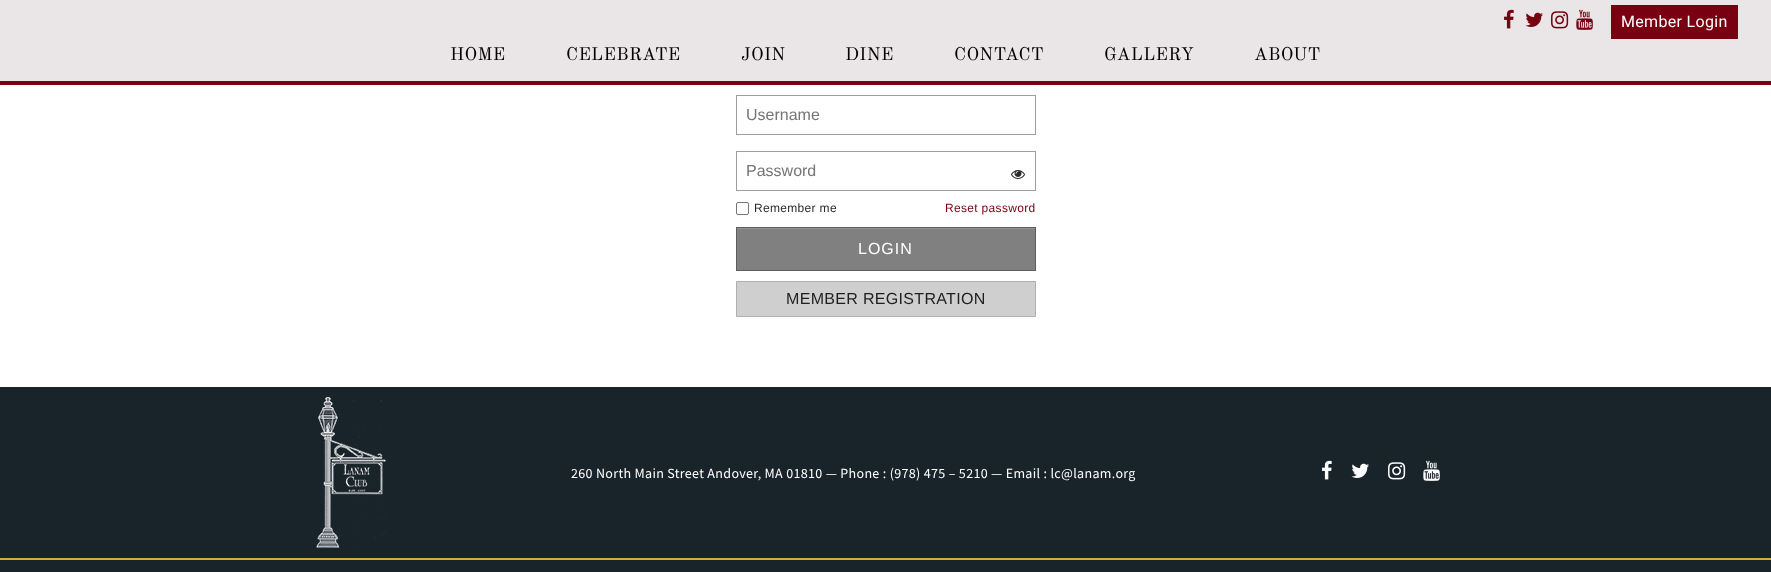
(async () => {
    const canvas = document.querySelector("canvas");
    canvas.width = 1771;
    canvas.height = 572;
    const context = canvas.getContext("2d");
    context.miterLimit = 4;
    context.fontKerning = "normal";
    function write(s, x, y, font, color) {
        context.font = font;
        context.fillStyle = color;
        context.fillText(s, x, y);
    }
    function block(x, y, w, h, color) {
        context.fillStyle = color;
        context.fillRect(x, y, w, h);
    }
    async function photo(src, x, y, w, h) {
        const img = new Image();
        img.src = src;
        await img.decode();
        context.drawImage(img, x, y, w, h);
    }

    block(0, 0, 1771, 572, "rgb(255, 255, 255)");
    block(0, 0, 1771, 81, "rgb(234, 230, 232)");
    block(0, 81, 1771, 4, "rgb(121, 0, 17)");
    await photo("media/1.png", 1504, 9, 10, 20);
    await photo("media/2.png", 1525, 12, 18, 15);
    await photo("media/3.png", 1551, 11, 18, 18);
    await photo("media/4.png", 1576, 9, 17, 21);
    block(1611, 5, 127, 34, "rgb(121, 0, 17)");
    context.letterSpacing = "0.32px";
    write("Member Login", 1621, 27, "16px Roboto", "rgb(255, 255, 255)");
    write("HOME", 450, 60, "18px Old Standard TT", "rgb(0, 0, 0)");
    write("CELEBRATE", 566, 60, "18px Old Standard TT", "rgb(0, 0, 0)");
    write("JOIN", 741, 60, "18px Old Standard TT", "rgb(0, 0, 0)");
    write("DINE", 845, 60, "18px Old Standard TT", "rgb(0, 0, 0)");
    write("CONTACT", 954, 60, "18px Old Standard TT", "rgb(0, 0, 0)");
    write("GALLERY", 1104, 60, "18px Old Standard TT", "rgb(0, 0, 0)");
    write("ABOUT", 1254, 60, "18px Old Standard TT", "rgb(0, 0, 0)");
    context.strokeStyle = "rgb(158, 158, 158)";
    context.strokeRect(736.5, 95.5, 299, 39);
    context.letterSpacing = "0px";
    write("Username", 746, 120, "16px Liberation Sans", "rgb(117, 117, 117)");
    context.strokeRect(736.5, 151.5, 299, 39);
    write("Password", 746, 176, "16px Liberation Sans", "rgb(117, 117, 117)");
    await photo("media/5.png", 1011, 170, 14, 9);
    context.beginPath();
    context.roundRect(736.5, 202.5, 12, 12, 1.5);
    context.strokeStyle = "rgb(118, 118, 118)";
    context.stroke();
    context.letterSpacing = "0.32px";
    write("Remember me", 754, 212, "12px Liberation Sans", "rgb(42, 42, 42)");
    write("Reset password", 945, 212, "12px Liberation Sans", "rgb(121, 0, 17)");
    block(737, 229, 298, 41, "rgb(128, 128, 128)");
    block(737, 228, 298, 1, "rgb(147, 147, 147)");
    context.strokeStyle = "rgb(93, 93, 93)";
    context.strokeRect(736.5, 227.5, 299, 43);
    context.letterSpacing = "1px";
    write("LOGIN", 858, 254, "16px Liberation Sans", "rgb(255, 255, 255)");
    context.fillStyle = "rgb(207, 207, 207)";
    context.beginPath();
    context.rect(736.5, 281.5, 299, 35);
    context.fill();
    context.strokeStyle = "rgb(175, 175, 175)";
    context.stroke();
    context.letterSpacing = "0.32px";
    write("MEMBER REGISTRATION", 786, 304, "16px Liberation Sans", "rgb(31, 31, 31)");
    block(0, 387, 1771, 185, "rgb(24, 35, 42)");
    await photo("media/6.png", 316, 397, 70, 151);
    write("260 North Main Street Andover, MA 01810 — Phone : (978) 475 – 5210 — Email : lc@lanam.org", 571, 478, "14px Source Sans Pro", "rgb(255, 255, 255)");
    await photo("media/7.png", 1322, 460, 10, 20);
    await photo("media/8.png", 1351, 463, 18, 15);
    await photo("media/9.png", 1388, 462, 18, 18);
    await photo("media/10.png", 1423, 460, 17, 21);
    block(0, 558, 1771, 2, "rgb(212, 175, 55)");
})();
